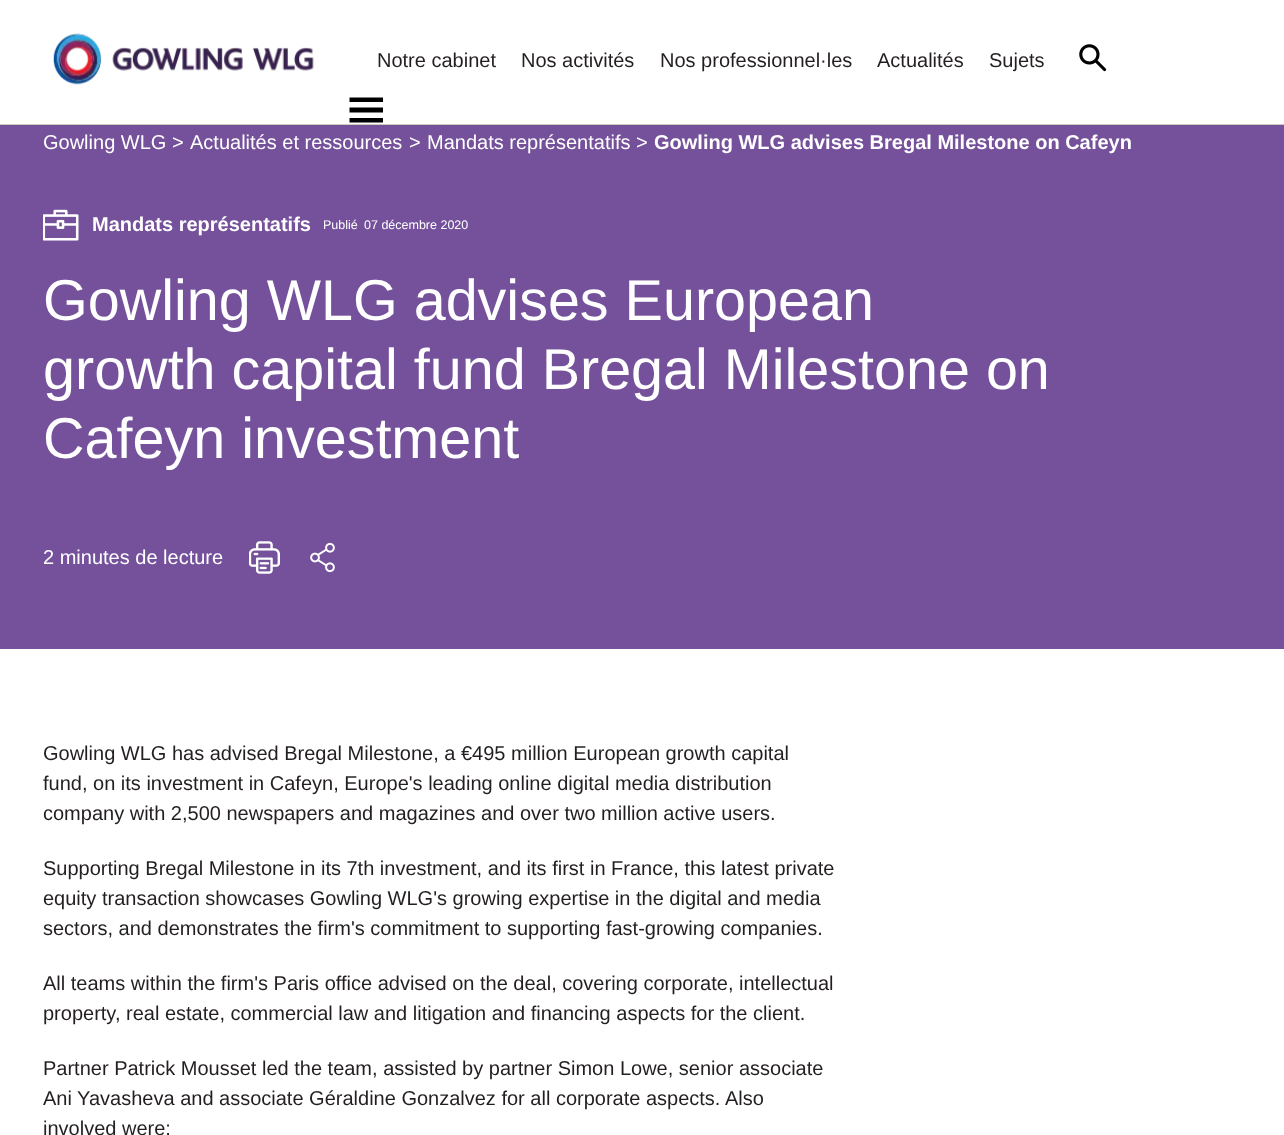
(async () => {
    const canvas = document.querySelector("canvas");
    canvas.width = 1284;
    canvas.height = 1135;
    const context = canvas.getContext("2d");
    context.miterLimit = 4;
    context.fontKerning = "normal";
    function write(s, x, y, font, color) {
        context.font = font;
        context.fillStyle = color;
        context.fillText(s, x, y);
    }
    function block(x, y, w, h, color) {
        context.fillStyle = color;
        context.fillRect(x, y, w, h);
    }
    async function photo(src, x, y, w, h) {
        const img = new Image();
        img.src = src;
        await img.decode();
        context.drawImage(img, x, y, w, h);
    }

    block(0, 0, 1284, 1135, "rgb(255, 255, 255)");
    block(0, 124, 1284, 1, "rgb(204, 203, 188)");
    await photo("media/1.png", 53, 33, 261, 52);
    write("Notre cabinet", 377, 67, "20px Liberation Sans", "rgb(35, 31, 32)");
    write("Nos activités", 521, 67, "20px Liberation Sans", "rgb(35, 31, 32)");
    write("Nos professionnel·les", 660, 67, "20px Liberation Sans", "rgb(35, 31, 32)");
    write("Actualités", 877, 67, "20px Liberation Sans", "rgb(35, 31, 32)");
    write("Sujets", 989, 67, "20px Liberation Sans", "rgb(35, 31, 32)");
    await photo("media/2.png", 1079, 44, 28, 28);
    context.fillStyle = "rgb(0, 0, 0)";
    context.beginPath();
    context.moveTo(349.5, 97.5);
    context.lineTo(349.5, 102);
    context.lineTo(383, 102);
    context.lineTo(383, 97.5);
    context.closePath();
    context.moveTo(349.5, 107.5);
    context.lineTo(349.5, 112.5);
    context.lineTo(383, 112.5);
    context.lineTo(383, 107.5);
    context.closePath();
    context.moveTo(349.5, 118);
    context.lineTo(349.5, 122.5);
    context.lineTo(383, 122.5);
    context.lineTo(383, 118);
    context.closePath();
    context.fill();
    block(0, 125, 1284, 524, "rgb(116, 81, 154)");
    write("Gowling WLG", 43, 149, "20px Liberation Sans", "rgb(255, 255, 255)");
    write(">", 172, 149, "20px Liberation Sans", "rgb(255, 255, 255)");
    write("Actualités et ressources", 190, 149, "20px Liberation Sans", "rgb(255, 255, 255)");
    write(">", 409, 149, "20px Liberation Sans", "rgb(255, 255, 255)");
    write("Mandats représentatifs", 427, 149, "20px Liberation Sans", "rgb(255, 255, 255)");
    write(">", 636, 149, "20px Liberation Sans", "rgb(255, 255, 255)");
    write("Gowling WLG advises Bregal Milestone on Cafeyn", 654, 149, "bold 20px Liberation Sans", "rgb(255, 255, 255)");
    await photo("media/3.png", 43, 209, 36, 32);
    write("Mandats représentatifs", 92, 231, "bold 20px Liberation Sans", "rgb(255, 255, 255)");
    write("Publié", 323, 229, "12.5px Liberation Sans", "rgb(255, 255, 255)");
    write("07 décembre 2020", 364, 229, "12.5px Liberation Sans", "rgb(255, 255, 255)");
    write("Gowling WLG advises European", 43, 320, "57.5px Liberation Sans", "rgb(255, 255, 255)");
    write("growth capital fund Bregal Milestone on", 43, 389, "57.5px Liberation Sans", "rgb(255, 255, 255)");
    write("Cafeyn investment", 43, 458, "57.5px Liberation Sans", "rgb(255, 255, 255)");
    write("2 minutes de lecture", 43, 564, "20px Liberation Sans", "rgb(255, 255, 255)");
    await photo("media/4.png", 249, 541, 31, 33);
    await photo("media/5.png", 310, 542, 25, 31);
    write("Gowling WLG has advised Bregal Milestone, a €495 million European growth capital", 43, 760, "20px Liberation Sans", "rgb(35, 31, 32)");
    write("fund, on its investment in Cafeyn, Europe's leading online digital media distribution", 43, 790, "20px Liberation Sans", "rgb(35, 31, 32)");
    write("company with 2,500 newspapers and magazines and over two million active users.", 43, 820, "20px Liberation Sans", "rgb(35, 31, 32)");
    write("Supporting Bregal Milestone in its 7th investment, and its first in France, this latest private", 43, 875, "20px Liberation Sans", "rgb(35, 31, 32)");
    write("equity transaction showcases Gowling WLG's growing expertise in the digital and media", 43, 905, "20px Liberation Sans", "rgb(35, 31, 32)");
    write("sectors, and demonstrates the firm's commitment to supporting fast-growing companies.", 43, 935, "20px Liberation Sans", "rgb(35, 31, 32)");
    write("All teams within the firm's Paris office advised on the deal, covering corporate, intellectual", 43, 990, "20px Liberation Sans", "rgb(35, 31, 32)");
    write("property, real estate, commercial law and litigation and financing aspects for the client.", 43, 1020, "20px Liberation Sans", "rgb(35, 31, 32)");
    write("Partner Patrick Mousset led the team, assisted by partner Simon Lowe, senior associate", 43, 1075, "20px Liberation Sans", "rgb(35, 31, 32)");
    write("Ani Yavasheva and associate Géraldine Gonzalvez for all corporate aspects. Also", 43, 1105, "20px Liberation Sans", "rgb(35, 31, 32)");
    write("involved were:", 43, 1135, "20px Liberation Sans", "rgb(35, 31, 32)");
})();
